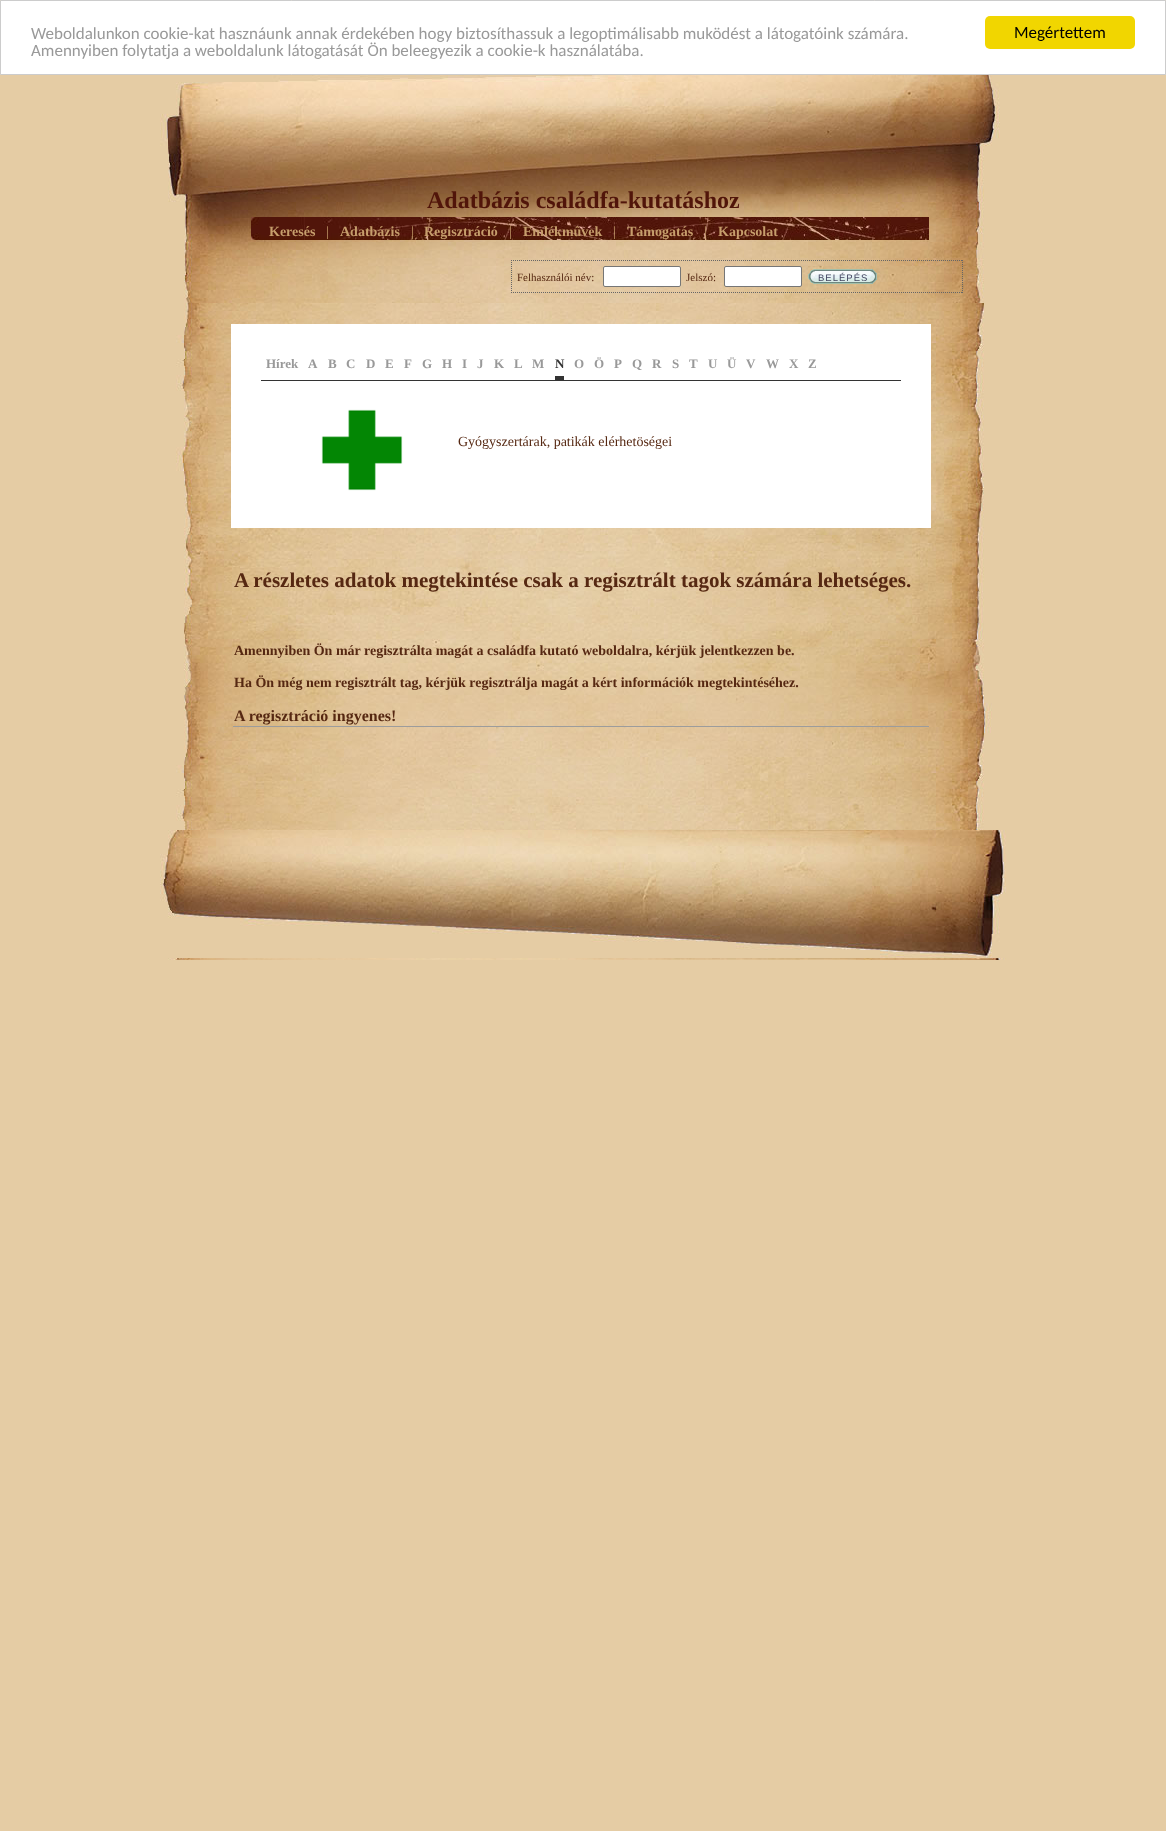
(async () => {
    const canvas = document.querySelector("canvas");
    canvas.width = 1166;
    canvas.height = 1831;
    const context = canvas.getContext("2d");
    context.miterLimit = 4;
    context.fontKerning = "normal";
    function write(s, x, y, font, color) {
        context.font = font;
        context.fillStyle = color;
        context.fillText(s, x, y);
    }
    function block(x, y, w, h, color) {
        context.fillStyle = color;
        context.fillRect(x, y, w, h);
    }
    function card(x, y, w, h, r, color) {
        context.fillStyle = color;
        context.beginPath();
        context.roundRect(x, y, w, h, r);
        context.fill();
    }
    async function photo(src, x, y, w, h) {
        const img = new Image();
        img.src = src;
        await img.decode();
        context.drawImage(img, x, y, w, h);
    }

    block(0, 0, 1166, 1831, "rgb(229, 204, 164)");
    context.fillStyle = "rgb(255, 255, 255)";
    context.beginPath();
    context.rect(0.5, 0.5, 1165, 74);
    context.fill();
    context.strokeStyle = "rgb(204, 204, 204)";
    context.stroke();
    write("Weboldalunkon cookie-kat hasznáunk annak érdekében hogy biztosíthassuk a legoptimálisabb muködést a látogatóink számára.", 31, 39, "17px Carlito", "rgb(153, 153, 153)");
    write("Amennyiben folytatja a weboldalunk látogatását Ön beleegyezik a cookie-k használatába.", 31, 56, "17px Carlito", "rgb(153, 153, 153)");
    card(985, 16, 150, 33, 5, "rgb(241, 214, 0)");
    write("Megértettem", 1014, 38, "17px Carlito", "rgb(0, 0, 0)");
    await photo("media/1.png", 160, 75, 840, 228);
    write("Adatbázis családfa-kutatáshoz", 427, 208, "bold 24px Liberation Serif", "rgb(81, 21, 10)");
    await photo("media/2.png", 251, 217, 678, 23);
    write("Keresés", 269, 236, "bold 14px Liberation Serif", "rgb(198, 158, 108)");
    write("|", 326, 236, "14px Liberation Serif", "rgb(198, 158, 108)");
    write("Adatbázis", 340, 236, "bold 14px Liberation Serif", "rgb(198, 158, 108)");
    write("|", 411, 236, "14px Liberation Serif", "rgb(198, 158, 108)");
    write("Regisztráció", 424, 236, "bold 14px Liberation Serif", "rgb(198, 158, 108)");
    write("|", 509, 236, "14px Liberation Serif", "rgb(198, 158, 108)");
    write("Emlékmûvek", 523, 236, "bold 14px Liberation Serif", "rgb(198, 158, 108)");
    write("|", 613, 236, "14px Liberation Serif", "rgb(198, 158, 108)");
    write("Támogatás", 627, 236, "bold 14px Liberation Serif", "rgb(198, 158, 108)");
    write("|", 704, 236, "14px Liberation Serif", "rgb(198, 158, 108)");
    write("Kapcsolat", 718, 236, "bold 14px Liberation Serif", "rgb(198, 158, 108)");
    context.beginPath();
    context.moveTo(511, 260.5);
    context.lineTo(963, 260.5);
    context.strokeStyle = "rgb(102, 102, 102)";
    context.setLineDash([1, 1]);
    context.stroke();
    context.beginPath();
    context.moveTo(962.5, 260);
    context.lineTo(962.5, 293);
    context.stroke();
    context.beginPath();
    context.moveTo(511, 292.5);
    context.lineTo(963, 292.5);
    context.stroke();
    context.beginPath();
    context.moveTo(511.5, 260);
    context.lineTo(511.5, 293);
    context.stroke();
    write("Felhasználói név:", 517, 281, "11px Liberation Serif", "rgb(86, 40, 18)");
    context.fillStyle = "rgb(255, 255, 255)";
    context.beginPath();
    context.roundRect(603.5, 266.5, 77, 20, 1.5);
    context.fill();
    context.strokeStyle = "rgb(118, 118, 118)";
    context.setLineDash([]);
    context.stroke();
    write("Jelszó:", 686, 281, "11px Liberation Serif", "rgb(86, 40, 18)");
    context.fillStyle = "rgb(255, 255, 255)";
    context.beginPath();
    context.roundRect(724.5, 266.5, 77, 20, 1.5);
    context.fill();
    context.stroke();
    await photo("media/3.png", 808, 269, 7, 15);
    await photo("media/4.png", 815, 269, 55, 15);
    context.letterSpacing = "1px";
    write("BELÉPÉS", 818, 281, "9.5px Liberation Sans", "rgb(68, 70, 97)");
    await photo("media/5.png", 870, 269, 7, 15);
    await photo("media/6.png", 176, 303, 816, 527);
    block(231, 324, 700, 204, "rgb(255, 255, 255)");
    block(261, 380, 640, 1, "rgb(51, 51, 51)");
    context.letterSpacing = "0px";
    write("Hírek", 266, 368, "bold 13px Liberation Serif", "rgb(153, 153, 153)");
    write("A", 308, 368, "bold 13px Liberation Serif", "rgb(153, 153, 153)");
    write("B", 328, 368, "bold 13px Liberation Serif", "rgb(153, 153, 153)");
    write("C", 346, 368, "bold 13px Liberation Serif", "rgb(153, 153, 153)");
    write("D", 366, 368, "bold 13px Liberation Serif", "rgb(153, 153, 153)");
    write("E", 385, 368, "bold 13px Liberation Serif", "rgb(153, 153, 153)");
    write("F", 404, 368, "bold 13px Liberation Serif", "rgb(153, 153, 153)");
    write("G", 422, 368, "bold 13px Liberation Serif", "rgb(153, 153, 153)");
    write("H", 442, 368, "bold 13px Liberation Serif", "rgb(153, 153, 153)");
    write("I", 462, 368, "bold 13px Liberation Serif", "rgb(153, 153, 153)");
    write("J", 477, 368, "bold 13px Liberation Serif", "rgb(153, 153, 153)");
    write("K", 494, 368, "bold 13px Liberation Serif", "rgb(153, 153, 153)");
    write("L", 514, 368, "bold 13px Liberation Serif", "rgb(153, 153, 153)");
    write("M", 532, 368, "bold 13px Liberation Serif", "rgb(153, 153, 153)");
    block(555, 376, 9, 4, "rgb(51, 51, 51)");
    write("N", 555, 368, "bold 13px Liberation Serif", "rgb(51, 51, 51)");
    write("O", 574, 368, "bold 13px Liberation Serif", "rgb(153, 153, 153)");
    write("Ö", 594, 368, "bold 13px Liberation Serif", "rgb(153, 153, 153)");
    write("P", 614, 368, "bold 13px Liberation Serif", "rgb(153, 153, 153)");
    write("Q", 632, 368, "bold 13px Liberation Serif", "rgb(153, 153, 153)");
    write("R", 652, 368, "bold 13px Liberation Serif", "rgb(153, 153, 153)");
    write("S", 672, 368, "bold 13px Liberation Serif", "rgb(153, 153, 153)");
    write("T", 689, 368, "bold 13px Liberation Serif", "rgb(153, 153, 153)");
    write("U", 708, 368, "bold 13px Liberation Serif", "rgb(153, 153, 153)");
    write("Ü", 727, 368, "bold 13px Liberation Serif", "rgb(153, 153, 153)");
    write("V", 746, 368, "bold 13px Liberation Serif", "rgb(153, 153, 153)");
    write("W", 766, 368, "bold 13px Liberation Serif", "rgb(153, 153, 153)");
    write("X", 789, 368, "bold 13px Liberation Serif", "rgb(153, 153, 153)");
    write("Z", 808, 368, "bold 13px Liberation Serif", "rgb(153, 153, 153)");
    await photo("media/7.png", 321, 409, 82, 82);
    write("Gyógyszertárak, patikák elérhetöségei", 458, 446, "14px Liberation Serif", "rgb(86, 40, 18)");
    block(233, 726, 696, 1, "rgb(156, 156, 156)");
    write("A részletes adatok megtekintése csak a regisztrált tagok számára lehetséges.", 234, 587, "bold 21px Liberation Serif", "rgb(86, 40, 18)");
    write("Amennyiben Ön már regisztrálta magát a családfa kutató weboldalra, kérjük jelentkezzen be.", 234, 655, "bold 14px Liberation Serif", "rgb(86, 40, 18)");
    write("Ha Ön még nem regisztrált tag, kérjük regisztrálja magát a kért információk megtekintéséhez.", 234, 687, "bold 14px Liberation Serif", "rgb(86, 40, 18)");
    write("A regisztráció ingyenes!", 234, 721, "bold 16px Liberation Serif", "rgb(86, 40, 18)");
    await photo("media/8.png", 160, 830, 846, 130);
})();
